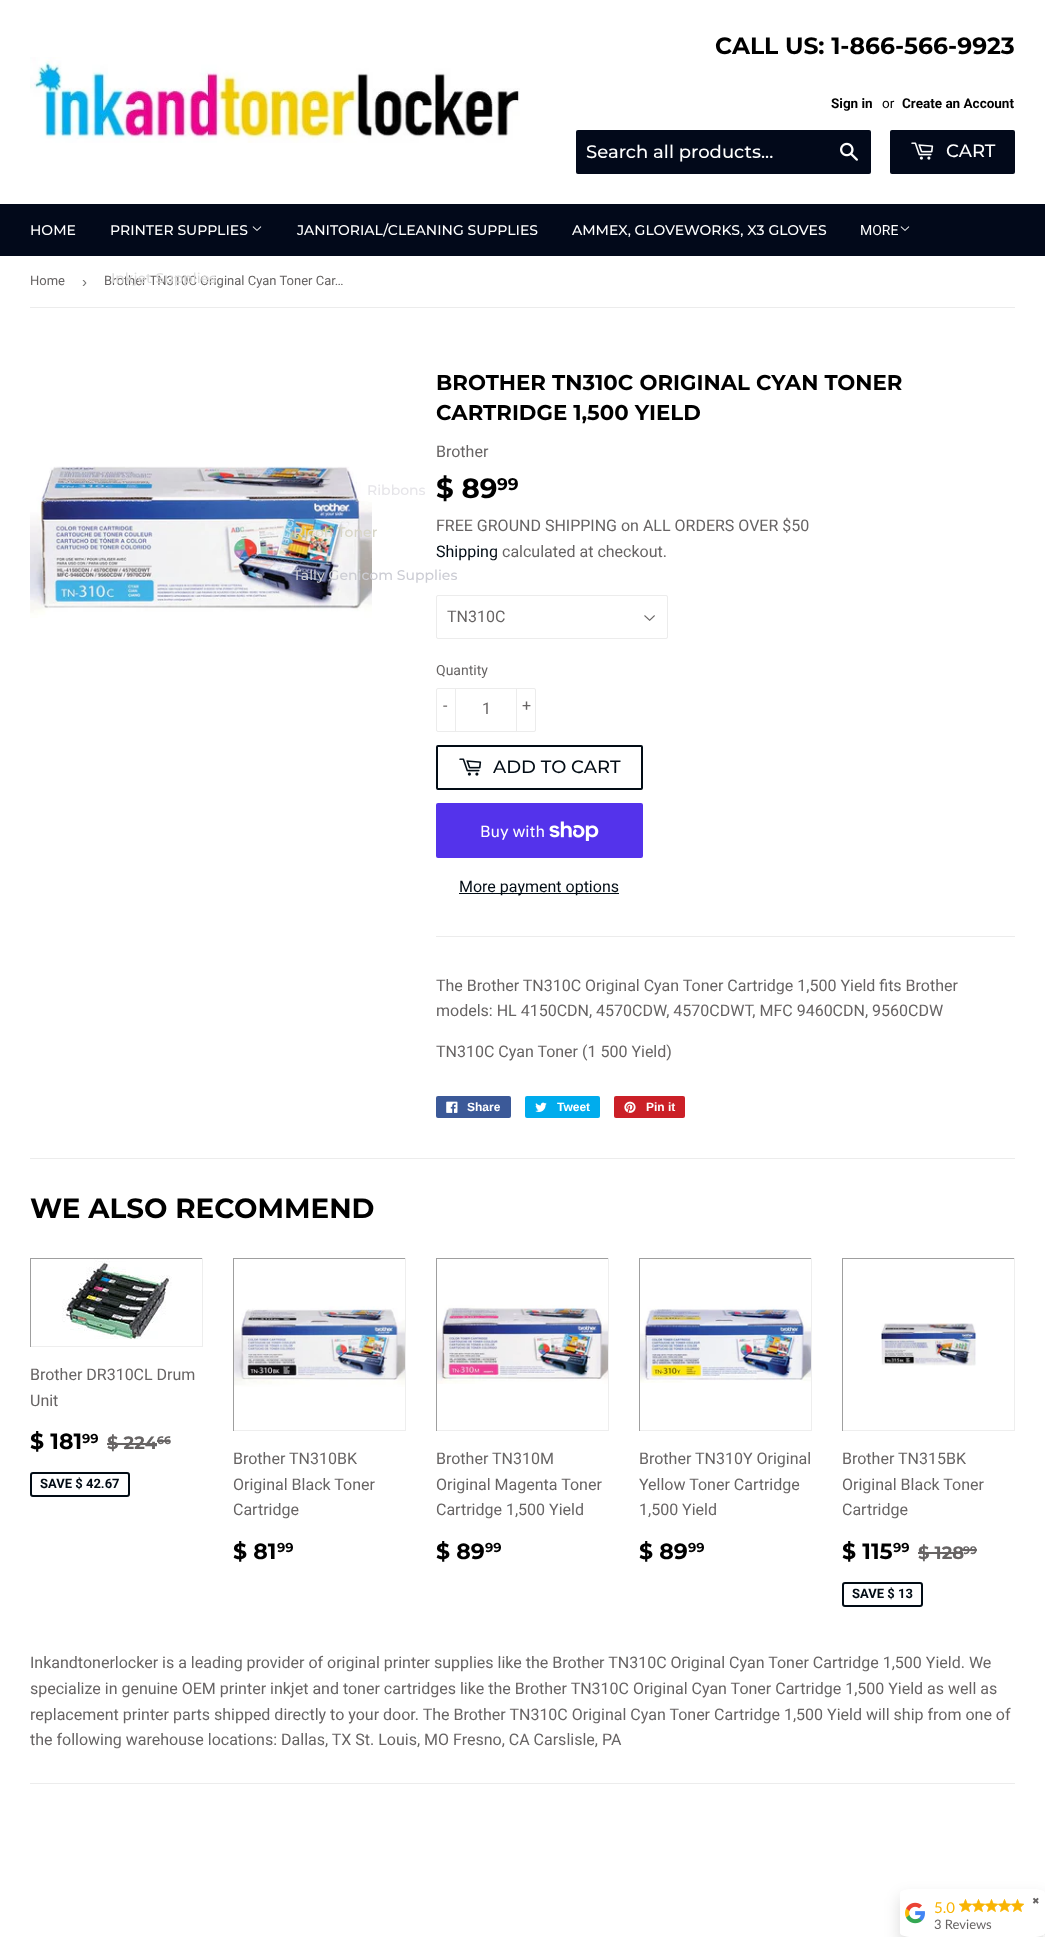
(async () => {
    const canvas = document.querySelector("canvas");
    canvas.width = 1045;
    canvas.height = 1937;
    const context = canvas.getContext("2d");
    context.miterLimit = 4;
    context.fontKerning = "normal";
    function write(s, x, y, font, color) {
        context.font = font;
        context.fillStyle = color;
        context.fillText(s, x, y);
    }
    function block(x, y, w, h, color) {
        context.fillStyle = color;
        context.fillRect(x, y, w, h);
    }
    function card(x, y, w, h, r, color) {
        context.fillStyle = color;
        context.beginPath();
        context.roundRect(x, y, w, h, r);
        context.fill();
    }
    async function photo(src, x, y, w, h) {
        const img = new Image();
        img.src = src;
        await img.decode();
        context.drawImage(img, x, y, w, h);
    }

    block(0, 0, 1045, 1937, "rgb(255, 255, 255)");
    await photo("media/1.png", 30, 57, 490, 86);
    write("CALL US: 1-866-566-9923", 715, 54, "bold 23.5px Montserrat", "rgb(0, 0, 0)");
    write("Sign in", 831, 108, "bold 13.5px Roboto", "rgb(0, 0, 0)");
    write("or", 882, 108, "13.5px Roboto", "rgb(0, 0, 0)");
    write("Create an Account", 902, 108, "bold 13.5px Roboto", "rgb(0, 0, 0)");
    card(576, 130, 295, 44, 2, "rgb(2, 9, 26)");
    write("Search all products...", 586, 158, "500 18px Montserrat", "rgb(255, 255, 255)");
    await photo("media/2.png", 840, 142, 18, 19);
    card(890, 130, 125, 44, 2, "rgb(2, 9, 26)");
    await photo("media/3.png", 911, 142, 23, 18);
    write("CART", 946, 157, "500 18px Montserrat", "rgb(255, 255, 255)");
    block(0, 204, 1045, 52, "rgb(2, 9, 26)");
    write("HOME", 30, 235, "500 14px Montserrat", "rgb(255, 255, 255)");
    write("JANITORIAL/CLEANING SUPPLIES", 297, 235, "500 14px Montserrat", "rgb(255, 255, 255)");
    write("MORE", 860, 235, "14px Roboto", "rgb(255, 255, 255)");
    await photo("media/4.png", 900, 226, 10, 5);
    write("PRINTER SUPPLIES", 110, 235, "500 14px Montserrat", "rgb(255, 255, 255)");
    await photo("media/4.png", 252, 226, 10, 5);
    write("Brother TN310C Original Cyan Toner Car…", 104, 285, "13px Roboto", "rgb(103, 100, 100)");
    write("Inkjet Supplies", 111, 283, "500 14px Montserrat", "rgb(220, 220, 220)");
    await photo("media/5.png", 30, 466, 342, 152);
    write("Ribbons", 367, 495, "500 14px Montserrat", "rgb(230, 229, 233)");
    write("Ricoh Toner", 293, 537, "500 14px Montserrat", "rgb(215, 213, 198)");
    write("Tally Genicom Supplies", 293, 580, "500 14px Montserrat", "rgb(204, 205, 212)");
    write("AMMEX, GLOVEWORKS, X3 GLOVES", 572, 235, "500 14px Montserrat", "rgb(255, 255, 255)");
    block(30, 307, 985, 1, "rgb(236, 236, 236)");
    write("Home", 30, 285, "13px Roboto", "rgb(103, 100, 100)");
    write("›", 82, 287, "15px Liberation Sans", "rgb(118, 118, 118)");
    write("BROTHER TN310C ORIGINAL CYAN TONER", 436, 390, "bold 21.3px Montserrat", "rgb(0, 0, 0)");
    write("CARTRIDGE 1,500 YIELD", 436, 420, "bold 21.3px Montserrat", "rgb(0, 0, 0)");
    write("Brother", 436, 457, "16px Roboto", "rgb(103, 100, 100)");
    write("$ 89", 436, 498, "bold 27.75px Montserrat", "rgb(0, 0, 0)");
    write("99", 497, 490, "bold 17px Montserrat", "rgb(0, 0, 0)");
    write("FREE GROUND SHIPPING on ALL ORDERS OVER $50", 436, 531, "16px Roboto", "rgb(103, 100, 100)");
    write("Shipping", 436, 557, "16px Roboto", "rgb(2, 12, 21)");
    write("calculated at checkout.", 502, 557, "16px Roboto", "rgb(103, 100, 100)");
    await photo("media/6.png", 644, 615, 11, 6);
    context.beginPath();
    context.roundRect(436.5, 595.5, 231, 43, 1.5);
    context.strokeStyle = "rgb(236, 236, 236)";
    context.stroke();
    write("TN310C", 447, 622, "16px Roboto", "rgb(103, 100, 100)");
    write("Quantity", 436, 675, "14px Roboto", "rgb(103, 100, 100)");
    context.beginPath();
    context.roundRect(436.5, 688.5, 99, 43, 1.5);
    context.stroke();
    block(455, 688, 1, 44, "rgb(236, 236, 236)");
    write("-", 443, 711, "16px Roboto", "rgb(103, 100, 100)");
    write("1", 482, 714, "16px Roboto", "rgb(103, 100, 100)");
    block(516, 688, 1, 44, "rgb(236, 236, 236)");
    write("+", 522, 711, "16px Roboto", "rgb(103, 100, 100)");
    context.beginPath();
    context.roundRect(437, 746, 205, 43, 1);
    context.strokeStyle = "rgb(2, 12, 21)";
    context.lineWidth = 2;
    context.stroke();
    await photo("media/7.png", 459, 758, 23, 18);
    write("ADD TO CART", 493, 773, "500 18px Montserrat", "rgb(2, 12, 21)");
    card(436, 803, 207, 55, 2, "rgb(84, 51, 235)");
    write("Buy with", 480, 837, "16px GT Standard", "rgb(255, 255, 255)");
    await photo("media/8.png", 549, 821, 50, 20);
    block(459, 893, 160, 1, "rgb(2, 12, 21)");
    write("More payment options", 459, 892, "16px Roboto", "rgb(2, 12, 21)");
    block(436, 936, 579, 1, "rgb(236, 236, 236)");
    write("The Brother TN310C Original Cyan Toner Cartridge 1,500 Yield fits Brother", 436, 991, "16px Roboto", "rgb(103, 100, 100)");
    write("models: HL 4150CDN, 4570CDW, 4570CDWT, MFC 9460CDN, 9560CDW", 436, 1016, "16px Roboto", "rgb(103, 100, 100)");
    write("TN310C Cyan Toner (1 500 Yield)", 436, 1057, "16px Roboto", "rgb(103, 100, 100)");
    card(436, 1096, 75, 22, 2, "rgb(59, 89, 152)");
    await photo("media/9.png", 446, 1101, 12, 12);
    write("Share", 467, 1111, "bold 12px Liberation Sans", "rgb(255, 255, 255)");
    card(525, 1096, 75, 22, 2, "rgb(0, 172, 237)");
    await photo("media/10.png", 535, 1102, 12, 10);
    write("Tweet", 557, 1111, "bold 12px Liberation Sans", "rgb(255, 255, 255)");
    card(614, 1096, 71, 22, 2, "rgb(203, 32, 39)");
    await photo("media/11.png", 624, 1101, 12, 12);
    write("Pin it", 646, 1111, "bold 12px Liberation Sans", "rgb(255, 255, 255)");
    block(30, 1158, 985, 1, "rgb(236, 236, 236)");
    write("WE ALSO RECOMMEND", 30, 1218, "bold 27.75px Montserrat", "rgb(0, 0, 0)");
    block(30, 1258, 173, 1, "rgb(159, 159, 159)");
    block(202, 1258, 1, 89, "rgb(238, 238, 238)");
    block(30, 1346, 173, 1, "rgb(238, 238, 238)");
    block(30, 1258, 1, 89, "rgb(159, 159, 159)");
    await photo("media/12.png", 62, 1259, 110, 81);
    write("Brother DR310CL Drum", 30, 1380, "16px Roboto", "rgb(103, 100, 100)");
    write("Unit", 30, 1406, "16px Roboto", "rgb(103, 100, 100)");
    write("$ 181", 30, 1449, "bold 22px Montserrat", "rgb(0, 0, 0)");
    write("99", 82, 1443, "bold 13px Montserrat", "rgb(0, 0, 0)");
    write("$ 224", 107, 1449, "bold 18px Montserrat", "rgb(103, 100, 100)");
    block(107, 1443, 50, 2, "rgb(103, 100, 100)");
    write("66", 157, 1444, "bold 11px Montserrat", "rgb(103, 100, 100)");
    block(157, 1440, 13, 2, "rgb(103, 100, 100)");
    context.beginPath();
    context.roundRect(31, 1473, 98, 23, 2);
    context.stroke();
    write("SAVE $ 42.67", 40, 1488, "bold 13px Roboto", "rgb(2, 12, 21)");
    block(233, 1258, 173, 1, "rgb(159, 159, 159)");
    block(405, 1258, 1, 173, "rgb(238, 238, 238)");
    block(233, 1430, 173, 1, "rgb(238, 238, 238)");
    block(233, 1258, 1, 173, "rgb(159, 159, 159)");
    await photo("media/13.png", 234, 1306, 171, 81);
    write("Brother TN310BK", 233, 1464, "16px Roboto", "rgb(103, 100, 100)");
    write("Original Black Toner", 233, 1490, "16px Roboto", "rgb(103, 100, 100)");
    write("Cartridge", 233, 1515, "16px Roboto", "rgb(103, 100, 100)");
    write("$ 81", 233, 1559, "bold 22px Montserrat", "rgb(0, 0, 0)");
    write("99", 277, 1552, "bold 13px Montserrat", "rgb(0, 0, 0)");
    block(436, 1258, 173, 1, "rgb(159, 159, 159)");
    block(608, 1258, 1, 173, "rgb(238, 238, 238)");
    block(436, 1430, 173, 1, "rgb(238, 238, 238)");
    block(436, 1258, 1, 173, "rgb(159, 159, 159)");
    await photo("media/14.png", 437, 1305, 171, 79);
    write("Brother TN310M", 436, 1464, "16px Roboto", "rgb(103, 100, 100)");
    write("Original Magenta Toner", 436, 1490, "16px Roboto", "rgb(103, 100, 100)");
    write("Cartridge 1,500 Yield", 436, 1515, "16px Roboto", "rgb(103, 100, 100)");
    write("$ 89", 436, 1559, "bold 22px Montserrat", "rgb(0, 0, 0)");
    write("99", 485, 1552, "bold 13px Montserrat", "rgb(0, 0, 0)");
    block(639, 1258, 173, 1, "rgb(159, 159, 159)");
    block(811, 1258, 1, 173, "rgb(238, 238, 238)");
    block(639, 1430, 173, 1, "rgb(238, 238, 238)");
    block(639, 1258, 1, 173, "rgb(159, 159, 159)");
    await photo("media/15.png", 640, 1306, 171, 77);
    write("Brother TN310Y Original", 639, 1464, "16px Roboto", "rgb(103, 100, 100)");
    write("Yellow Toner Cartridge", 639, 1490, "16px Roboto", "rgb(103, 100, 100)");
    write("1,500 Yield", 639, 1515, "16px Roboto", "rgb(103, 100, 100)");
    write("$ 89", 639, 1559, "bold 22px Montserrat", "rgb(0, 0, 0)");
    write("99", 688, 1552, "bold 13px Montserrat", "rgb(0, 0, 0)");
    block(842, 1258, 173, 1, "rgb(159, 159, 159)");
    block(1014, 1258, 1, 173, "rgb(238, 238, 238)");
    block(842, 1430, 173, 1, "rgb(238, 238, 238)");
    block(842, 1258, 1, 173, "rgb(159, 159, 159)");
    await photo("media/16.png", 881, 1323, 96, 43);
    write("Brother TN315BK", 842, 1464, "16px Roboto", "rgb(103, 100, 100)");
    write("Original Black Toner", 842, 1490, "16px Roboto", "rgb(103, 100, 100)");
    write("Cartridge", 842, 1515, "16px Roboto", "rgb(103, 100, 100)");
    write("$ 115", 842, 1559, "bold 22px Montserrat", "rgb(0, 0, 0)");
    write("99", 893, 1552, "bold 13px Montserrat", "rgb(0, 0, 0)");
    write("$ 128", 918, 1559, "bold 18px Montserrat", "rgb(103, 100, 100)");
    block(918, 1552, 45, 2, "rgb(103, 100, 100)");
    write("99", 963, 1554, "bold 11px Montserrat", "rgb(103, 100, 100)");
    block(963, 1549, 14, 2, "rgb(103, 100, 100)");
    context.beginPath();
    context.roundRect(843, 1583, 79, 23, 2);
    context.stroke();
    write("SAVE $ 13", 852, 1598, "bold 13px Roboto", "rgb(2, 12, 21)");
    write("Inkandtonerlocker is a leading provider of original printer supplies like the Brother TN310C Original Cyan Toner Cartridge 1,500 Yield. We", 30, 1668, "16px Roboto", "rgb(103, 100, 100)");
    write("specialize in genuine OEM printer inkjet and toner cartridges like the Brother TN310C Original Cyan Toner Cartridge 1,500 Yield as well as", 30, 1694, "16px Roboto", "rgb(103, 100, 100)");
    write("replacement printer parts shipped directly to your door. The Brother TN310C Original Cyan Toner Cartridge 1,500 Yield will ship from one of", 30, 1720, "16px Roboto", "rgb(103, 100, 100)");
    write("the following warehouse locations: Dallas, TX St. Louis, MO Fresno, CA Carslisle, PA", 30, 1745, "16px Roboto", "rgb(103, 100, 100)");
    block(30, 1783, 985, 1, "rgb(236, 236, 236)");
    context.fillStyle = "rgba(0, 0, 0, 0.15)";
    context.filter = "blur(8px)";
    context.beginPath();
    context.roundRect(900, 1897, 145, 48, 4);
    context.fill();
    context.filter = "none";
    context.fillStyle = "rgb(255, 255, 255)";
    context.beginPath();
    context.moveTo(912, 1889);
    context.lineTo(1033, 1889);
    context.bezierCurveTo(1040, 1889, 1045, 1891, 1045, 1893);
    context.lineTo(1045, 1933);
    context.bezierCurveTo(1045, 1935, 1040, 1937, 1033, 1937);
    context.lineTo(912, 1937);
    context.bezierCurveTo(905, 1937, 900, 1935, 900, 1933);
    context.lineTo(900, 1893);
    context.bezierCurveTo(900, 1891, 905, 1889, 912, 1889);
    context.closePath();
    context.fill();
    write("✖", 1032, 1904, "9px DejaVu Sans", "rgb(103, 100, 100)");
    await photo("media/17.png", 905, 1902, 20, 22);
    write("5.0", 934, 1913, "15px Lato", "rgb(249, 180, 3)");
    await photo("media/18.png", 959, 1899, 13, 13);
    await photo("media/18.png", 972, 1899, 13, 13);
    await photo("media/18.png", 985, 1899, 13, 13);
    await photo("media/18.png", 998, 1899, 13, 13);
    await photo("media/18.png", 1011, 1899, 13, 13);
    write("3 Reviews", 934, 1929, "13px Lato", "rgb(103, 100, 100)");
    block(1043, 1935, 2, 2, "rgb(245, 245, 245)");
})();
